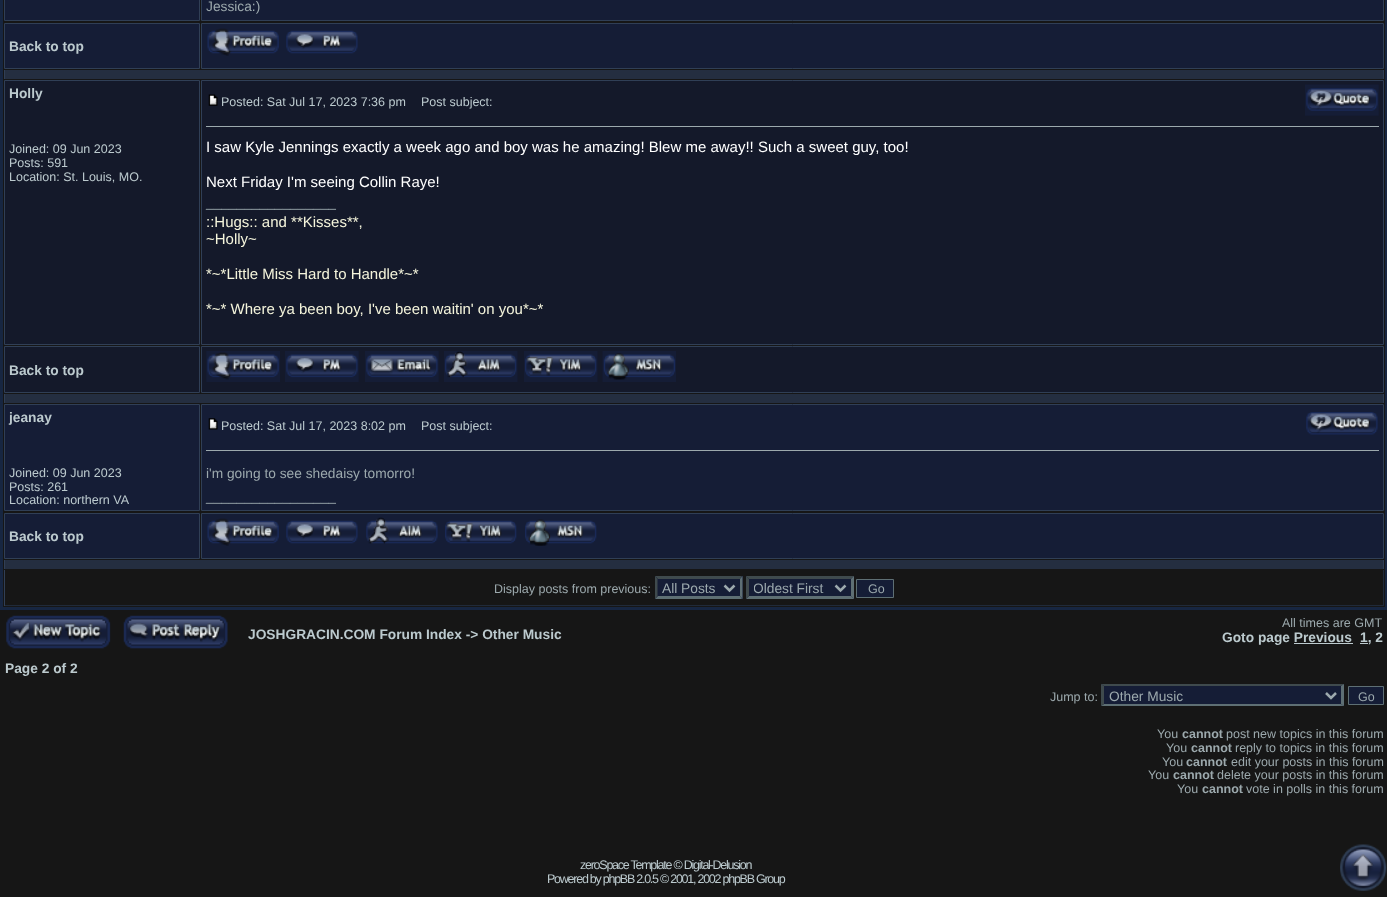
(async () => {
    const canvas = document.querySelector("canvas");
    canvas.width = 1387;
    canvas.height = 897;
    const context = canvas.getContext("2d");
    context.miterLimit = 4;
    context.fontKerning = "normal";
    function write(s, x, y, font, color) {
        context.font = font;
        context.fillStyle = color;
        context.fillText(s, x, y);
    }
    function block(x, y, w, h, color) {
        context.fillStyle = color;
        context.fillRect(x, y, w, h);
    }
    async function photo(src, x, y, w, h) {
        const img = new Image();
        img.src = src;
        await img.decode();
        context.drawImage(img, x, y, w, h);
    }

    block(0, 0, 1387, 897, "rgb(22, 22, 22)");
    context.strokeStyle = "rgb(23, 38, 65)";
    context.lineWidth = 3;
    context.strokeRect(1.5, -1.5, 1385, 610);
    context.fillStyle = "rgb(21, 29, 54)";
    context.beginPath();
    context.rect(4.5, -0.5, 195, 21);
    context.fill();
    context.strokeStyle = "rgb(48, 63, 86)";
    context.lineWidth = 1;
    context.stroke();
    context.beginPath();
    context.rect(201.5, -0.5, 1182, 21);
    context.fill();
    context.stroke();
    write("Jessica:)", 206, 11, "13.75px Liberation Sans", "rgb(156, 169, 173)");
    context.fillStyle = "rgb(21, 29, 54)";
    context.beginPath();
    context.rect(4.5, 23.5, 195, 45);
    context.fill();
    context.stroke();
    write("Back to top", 9, 51, "bold 13.75px Liberation Sans", "rgb(188, 202, 206)");
    context.fillStyle = "rgb(21, 29, 54)";
    context.beginPath();
    context.rect(201.5, 23.5, 1182, 45);
    context.fill();
    context.stroke();
    await photo("media/1.png", 207, 28, 72, 28);
    await photo("media/2.png", 286, 30, 72, 24);
    block(5, 70, 1378, 9, "rgb(36, 46, 64)");
    block(1383, 70, 1, 9, "rgb(48, 63, 86)");
    block(4, 70, 1, 9, "rgb(48, 63, 86)");
    context.fillStyle = "rgb(20, 25, 42)";
    context.beginPath();
    context.rect(4.5, 80.5, 195, 264);
    context.fill();
    context.stroke();
    write("Holly", 9, 98, "bold 13.75px Liberation Sans", "rgb(188, 202, 206)");
    write("Joined: 09 Jun 2023", 9, 153, "12.5px Liberation Sans", "rgb(188, 202, 206)");
    write("Posts: 591", 9, 167, "12.5px Liberation Sans", "rgb(188, 202, 206)");
    write("Location: St. Louis, MO.", 9, 181, "12.5px Liberation Sans", "rgb(188, 202, 206)");
    context.fillStyle = "rgb(20, 25, 42)";
    context.beginPath();
    context.rect(201.5, 80.5, 1182, 264);
    context.fill();
    context.stroke();
    await photo("media/3.png", 208, 94, 10, 12);
    write("Posted: Sat Jul 17, 2023 7:36 pm", 221, 106, "12.5px Liberation Sans", "rgb(188, 202, 206)");
    write("Post subject:", 421, 106, "12.5px Liberation Sans", "rgb(188, 202, 206)");
    await photo("media/4.png", 1305, 84, 74, 32);
    block(206, 126, 1173, 1, "rgb(156, 169, 173)");
    write("I saw Kyle Jennings exactly a week ago and boy was he amazing! Blew me away!! Such a sweet guy, too!", 206, 152, "15px Liberation Sans", "rgb(255, 255, 255)");
    write("Next Friday I'm seeing Collin Raye!", 206, 187, "15px Liberation Sans", "rgb(255, 255, 255)");
    write("_________________", 206, 207, "13.75px Liberation Sans", "rgb(156, 169, 173)");
    write("::Hugs:: and **Kisses**,", 206, 227, "15px Liberation Sans", "rgb(245, 245, 220)");
    write("~Holly~", 206, 244, "15px Liberation Sans", "rgb(245, 245, 220)");
    write("*~*Little Miss Hard to Handle*~*", 206, 279, "15px Liberation Sans", "rgb(245, 245, 220)");
    write("*~* Where ya been boy, I've been waitin' on you*~*", 206, 314, "15px Liberation Sans", "rgb(245, 245, 220)");
    context.fillStyle = "rgb(20, 25, 42)";
    context.beginPath();
    context.rect(4.5, 346.5, 195, 46);
    context.fill();
    context.stroke();
    write("Back to top", 9, 375, "bold 13.75px Liberation Sans", "rgb(188, 202, 206)");
    context.fillStyle = "rgb(20, 25, 42)";
    context.beginPath();
    context.rect(201.5, 346.5, 1182, 46);
    context.fill();
    context.stroke();
    await photo("media/5.png", 206, 351, 74, 31);
    await photo("media/6.png", 285, 351, 74, 31);
    await photo("media/7.png", 365, 351, 74, 31);
    await photo("media/8.png", 444, 351, 74, 31);
    await photo("media/9.png", 524, 351, 74, 31);
    await photo("media/10.png", 602, 351, 74, 31);
    block(5, 394, 1378, 9, "rgb(36, 46, 64)");
    block(1383, 394, 1, 9, "rgb(48, 63, 86)");
    block(4, 394, 1, 9, "rgb(48, 63, 86)");
    context.fillStyle = "rgb(21, 29, 54)";
    context.beginPath();
    context.rect(4.5, 404.5, 195, 106);
    context.fill();
    context.stroke();
    write("jeanay", 9, 422, "bold 13.75px Liberation Sans", "rgb(188, 202, 206)");
    write("Joined: 09 Jun 2023", 9, 477, "12.5px Liberation Sans", "rgb(188, 202, 206)");
    write("Posts: 261", 9, 491, "12.5px Liberation Sans", "rgb(188, 202, 206)");
    write("Location: northern VA", 9, 504, "12.5px Liberation Sans", "rgb(188, 202, 206)");
    context.fillStyle = "rgb(21, 29, 54)";
    context.beginPath();
    context.rect(201.5, 404.5, 1182, 106);
    context.fill();
    context.stroke();
    await photo("media/11.png", 208, 418, 10, 12);
    write("Posted: Sat Jul 17, 2023 8:02 pm", 221, 430, "12.5px Liberation Sans", "rgb(188, 202, 206)");
    write("Post subject:", 421, 430, "12.5px Liberation Sans", "rgb(188, 202, 206)");
    await photo("media/12.png", 1306, 412, 72, 23);
    block(206, 450, 1173, 1, "rgb(156, 169, 173)");
    write("i'm going to see shedaisy tomorro!", 206, 478, "13.75px Liberation Sans", "rgb(156, 169, 173)");
    write("_________________", 206, 501, "13.75px Liberation Sans", "rgb(156, 169, 173)");
    context.fillStyle = "rgb(21, 29, 54)";
    context.beginPath();
    context.rect(4.5, 513.5, 195, 45);
    context.fill();
    context.stroke();
    write("Back to top", 9, 541, "bold 13.75px Liberation Sans", "rgb(188, 202, 206)");
    context.fillStyle = "rgb(21, 29, 54)";
    context.beginPath();
    context.rect(201.5, 513.5, 1182, 45);
    context.fill();
    context.stroke();
    await photo("media/1.png", 207, 518, 72, 28);
    await photo("media/2.png", 286, 520, 72, 24);
    await photo("media/13.png", 366, 517, 72, 27);
    await photo("media/14.png", 445, 520, 72, 24);
    await photo("media/15.png", 525, 519, 72, 27);
    block(5, 560, 1378, 9, "rgb(36, 46, 64)");
    block(1383, 560, 1, 9, "rgb(48, 63, 86)");
    block(4, 560, 1, 9, "rgb(48, 63, 86)");
    block(1383, 570, 1, 36, "rgb(32, 42, 57)");
    block(4, 605, 1380, 1, "rgb(32, 42, 57)");
    block(4, 570, 1, 36, "rgb(48, 63, 86)");
    write("Display posts from previous:", 494, 593, "12.5px Liberation Sans", "rgb(156, 169, 173)");
    block(655, 576, 88, 23, "rgb(21, 29, 54)");
    context.fillStyle = "rgb(63, 74, 77)";
    context.beginPath();
    context.moveTo(655, 576);
    context.lineTo(742, 576);
    context.lineTo(740, 579);
    context.lineTo(658, 579);
    context.closePath();
    context.fill();
    context.fillStyle = "rgb(94, 111, 116)";
    context.beginPath();
    context.moveTo(742.5, 576);
    context.lineTo(742.5, 599);
    context.lineTo(740, 596);
    context.lineTo(740, 579);
    context.closePath();
    context.fill();
    context.beginPath();
    context.moveTo(742, 599);
    context.lineTo(655, 599);
    context.lineTo(658, 596);
    context.lineTo(740, 596);
    context.closePath();
    context.fill();
    context.fillStyle = "rgb(63, 74, 77)";
    context.beginPath();
    context.moveTo(655, 599);
    context.lineTo(655, 576);
    context.lineTo(657.5, 579);
    context.lineTo(657.5, 596);
    context.closePath();
    context.fill();
    context.beginPath();
    context.moveTo(724.5, 585.5);
    context.lineTo(729.5, 590.5);
    context.lineTo(734.5, 585.5);
    context.strokeStyle = "rgb(156, 169, 173)";
    context.lineWidth = 2.5;
    context.stroke();
    write("All Posts", 662, 593, "13.75px Liberation Sans", "rgb(156, 169, 173)");
    block(746, 576, 108, 23, "rgb(21, 29, 54)");
    context.fillStyle = "rgb(63, 74, 77)";
    context.beginPath();
    context.moveTo(746, 576);
    context.lineTo(854, 576);
    context.lineTo(851, 579);
    context.lineTo(749, 579);
    context.closePath();
    context.fill();
    context.fillStyle = "rgb(94, 111, 116)";
    context.beginPath();
    context.moveTo(854, 576);
    context.lineTo(854, 599);
    context.lineTo(851, 596);
    context.lineTo(851, 579);
    context.closePath();
    context.fill();
    context.beginPath();
    context.moveTo(854, 599);
    context.lineTo(746, 599);
    context.lineTo(749, 596);
    context.lineTo(851, 596);
    context.closePath();
    context.fill();
    context.fillStyle = "rgb(63, 74, 77)";
    context.beginPath();
    context.moveTo(746, 599);
    context.lineTo(746, 576);
    context.lineTo(749, 579);
    context.lineTo(749, 596);
    context.closePath();
    context.fill();
    context.beginPath();
    context.moveTo(835.5, 585.5);
    context.lineTo(840.5, 590.5);
    context.lineTo(845.5, 585.5);
    context.stroke();
    context.save();
    context.beginPath();
    context.rect(754, 579, 77, 17);
    context.clip();
    write("Oldest First", 753, 593, "13.75px Liberation Sans", "rgb(156, 169, 173)");
    context.restore();
    context.fillStyle = "rgb(21, 29, 54)";
    context.beginPath();
    context.rect(856.5, 579.5, 37, 18);
    context.fill();
    context.strokeStyle = "rgb(94, 111, 116)";
    context.lineWidth = 1;
    context.stroke();
    write("Go", 868, 593, "12.5px Liberation Sans", "rgb(156, 169, 173)");
    await photo("media/16.png", 6, 615, 105, 34);
    await photo("media/17.png", 123, 615, 105, 34);
    write("JOSHGRACIN.COM Forum Index -> Other Music", 248, 639, "bold 13.75px Liberation Sans", "rgb(188, 202, 206)");
    write("All times are GMT", 1282, 627, "12.5px Liberation Sans", "rgb(156, 169, 173)");
    write("Goto page Previous", 1222, 642, "bold 13.75px Liberation Sans", "rgb(188, 202, 206)");
    block(1294, 643, 59, 1, "rgb(188, 202, 206)");
    block(1360, 643, 8, 1, "rgb(188, 202, 206)");
    write("1, 2", 1360, 642, "bold 13.75px Liberation Sans", "rgb(188, 202, 206)");
    write("Page 2 of 2", 5, 673, "bold 13.75px Liberation Sans", "rgb(188, 202, 206)");
    write("Jump to:", 1050, 701, "12.5px Liberation Sans", "rgb(156, 169, 173)");
    block(1101, 684, 243, 22, "rgb(21, 29, 54)");
    context.fillStyle = "rgb(63, 74, 77)";
    context.beginPath();
    context.moveTo(1101, 684);
    context.lineTo(1344, 684);
    context.lineTo(1341, 686);
    context.lineTo(1104, 686);
    context.closePath();
    context.fill();
    context.fillStyle = "rgb(94, 111, 116)";
    context.beginPath();
    context.moveTo(1344, 684);
    context.lineTo(1344, 706);
    context.lineTo(1341, 704);
    context.lineTo(1341, 686);
    context.closePath();
    context.fill();
    context.beginPath();
    context.moveTo(1344, 706);
    context.lineTo(1101, 706);
    context.lineTo(1104, 704);
    context.lineTo(1341, 704);
    context.closePath();
    context.fill();
    context.fillStyle = "rgb(63, 74, 77)";
    context.beginPath();
    context.moveTo(1101, 706);
    context.lineTo(1101, 684);
    context.lineTo(1104, 686);
    context.lineTo(1104, 704);
    context.closePath();
    context.fill();
    context.beginPath();
    context.moveTo(1326, 693);
    context.lineTo(1331, 698);
    context.lineTo(1336, 693);
    context.strokeStyle = "rgb(156, 169, 173)";
    context.lineWidth = 2.5;
    context.stroke();
    write("Other Music", 1109, 701, "13.75px Liberation Sans", "rgb(156, 169, 173)");
    context.fillStyle = "rgb(21, 29, 54)";
    context.beginPath();
    context.rect(1348.5, 686.5, 35, 18);
    context.fill();
    context.strokeStyle = "rgb(94, 111, 116)";
    context.lineWidth = 1;
    context.stroke();
    write("Go", 1358, 701, "12.5px Liberation Sans", "rgb(156, 169, 173)");
    write("You", 1157, 738, "12.5px Liberation Sans", "rgb(156, 169, 173)");
    write("cannot", 1182, 738, "bold 12.5px Liberation Sans", "rgb(156, 169, 173)");
    write("post new topics in this forum", 1226, 738, "12.5px Liberation Sans", "rgb(156, 169, 173)");
    write("You", 1166, 752, "12.5px Liberation Sans", "rgb(156, 169, 173)");
    write("cannot", 1191, 752, "bold 12.5px Liberation Sans", "rgb(156, 169, 173)");
    write("reply to topics in this forum", 1235, 752, "12.5px Liberation Sans", "rgb(156, 169, 173)");
    write("You", 1162, 766, "12.5px Liberation Sans", "rgb(156, 169, 173)");
    write("cannot", 1186, 766, "bold 12.5px Liberation Sans", "rgb(156, 169, 173)");
    write("edit your posts in this forum", 1231, 766, "12.5px Liberation Sans", "rgb(156, 169, 173)");
    write("You", 1148, 779, "12.5px Liberation Sans", "rgb(156, 169, 173)");
    write("cannot", 1173, 779, "bold 12.5px Liberation Sans", "rgb(156, 169, 173)");
    write("delete your posts in this forum", 1217, 779, "12.5px Liberation Sans", "rgb(156, 169, 173)");
    write("You", 1177, 793, "12.5px Liberation Sans", "rgb(156, 169, 173)");
    write("cannot", 1202, 793, "bold 12.5px Liberation Sans", "rgb(156, 169, 173)");
    write("vote in polls in this forum", 1246, 793, "12.5px Liberation Sans", "rgb(156, 169, 173)");
    context.letterSpacing = "-1.25px";
    write("zeroSpace Template © Digital-Delusion", 580, 869, "12.5px Liberation Sans", "rgb(188, 202, 206)");
    write("Powered by phpBB 2.0.5 © 2001, 2002 phpBB Group", 547, 883, "12.5px Liberation Sans", "rgb(188, 202, 206)");
    await photo("media/18.png", 1340, 844, 47, 47);
})();
